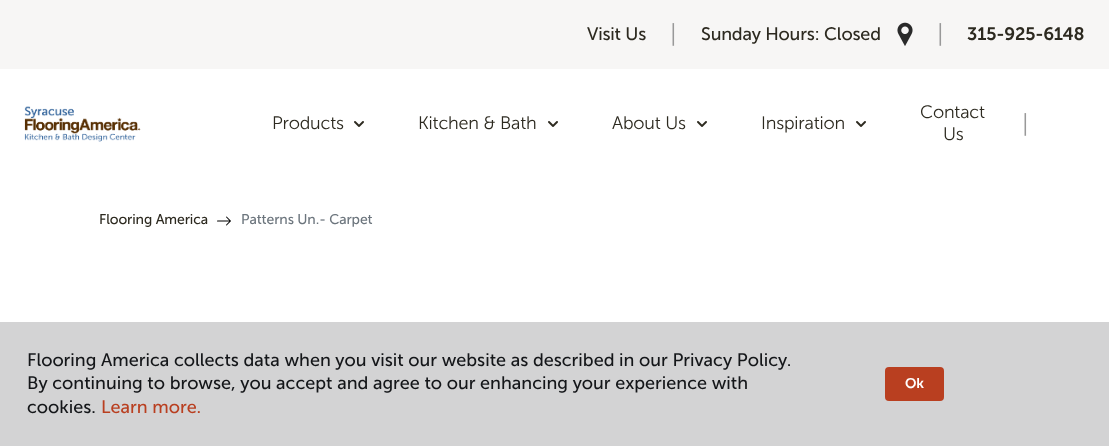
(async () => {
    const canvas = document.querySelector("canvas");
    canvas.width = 1109;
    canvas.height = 446;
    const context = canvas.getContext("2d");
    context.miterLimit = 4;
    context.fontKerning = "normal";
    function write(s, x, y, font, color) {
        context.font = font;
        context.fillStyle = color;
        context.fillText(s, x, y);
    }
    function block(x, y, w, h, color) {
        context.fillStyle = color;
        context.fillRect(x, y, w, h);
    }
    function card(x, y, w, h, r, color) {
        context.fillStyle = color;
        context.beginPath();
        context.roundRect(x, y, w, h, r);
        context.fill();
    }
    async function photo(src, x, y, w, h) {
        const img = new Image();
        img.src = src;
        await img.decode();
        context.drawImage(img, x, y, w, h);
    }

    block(0, 0, 1109, 446, "rgb(255, 255, 255)");
    block(0, 0, 1109, 69, "rgb(247, 246, 245)");
    context.letterSpacing = "-0.2px";
    write("Visit Us", 587, 40, "18px Museo Sans", "rgb(45, 42, 32)");
    context.letterSpacing = "0px";
    write("|", 670, 42, "300 24px Museo Sans", "rgb(153, 153, 153)");
    context.letterSpacing = "-0.2px";
    write("Sunday Hours: Closed", 701, 40, "18px Museo Sans", "rgb(45, 42, 32)");
    await photo("media/1.png", 897, 22, 16, 24);
    context.letterSpacing = "0px";
    write("|", 937, 42, "300 24px Museo Sans", "rgb(153, 153, 153)");
    context.letterSpacing = "-0.2px";
    write("315-925-6148", 967, 40, "600 18px Museo Sans", "rgb(45, 42, 32)");
    await photo("media/2.png", 24, 106, 117, 36);
    write("Products", 272, 129, "300 18px Museo Sans", "rgb(45, 42, 32)");
    await photo("media/3.png", 354, 121, 10, 6);
    write("Kitchen & Bath", 418, 129, "300 18px Museo Sans", "rgb(45, 42, 32)");
    await photo("media/3.png", 548, 121, 10, 6);
    write("About Us", 612, 129, "300 18px Museo Sans", "rgb(45, 42, 32)");
    await photo("media/3.png", 697, 121, 10, 6);
    write("Inspiration", 761, 129, "300 18px Museo Sans", "rgb(45, 42, 32)");
    await photo("media/3.png", 856, 121, 10, 6);
    write("Contact", 920, 118, "300 18px Museo Sans", "rgb(45, 42, 32)");
    write("Us", 943, 140, "300 18px Museo Sans", "rgb(45, 42, 32)");
    context.letterSpacing = "0px";
    write("|", 1022, 132, "300 24px Museo Sans", "rgb(153, 153, 153)");
    context.letterSpacing = "-0.1px";
    write("Flooring America", 99, 224, "14px Museo Sans", "rgb(45, 42, 32)");
    await photo("media/4.png", 217, 216, 14, 10);
    write("Patterns Un.- Carpet", 241, 224, "14px Museo Sans", "rgb(108, 117, 125)");
    block(0, 322, 1109, 124, "rgb(211, 211, 212)");
    context.letterSpacing = "0px";
    write("Flooring America collects data when you visit our website as described in our Privacy Policy.", 27, 366, "18px Museo Sans", "rgb(20, 22, 25)");
    write("By continuing to browse, you accept and agree to our enhancing your experience with", 27, 389, "18px Museo Sans", "rgb(20, 22, 25)");
    write("cookies.", 27, 413, "18px Museo Sans", "rgb(20, 22, 25)");
    write("Learn more.", 101, 413, "18px Museo Sans", "rgb(185, 63, 32)");
    card(885, 367, 59, 34, 4, "rgb(185, 63, 32)");
    context.letterSpacing = "-0.1px";
    write("Ok", 905, 388, "600 14px Museo Sans", "rgb(255, 255, 255)");
})();
